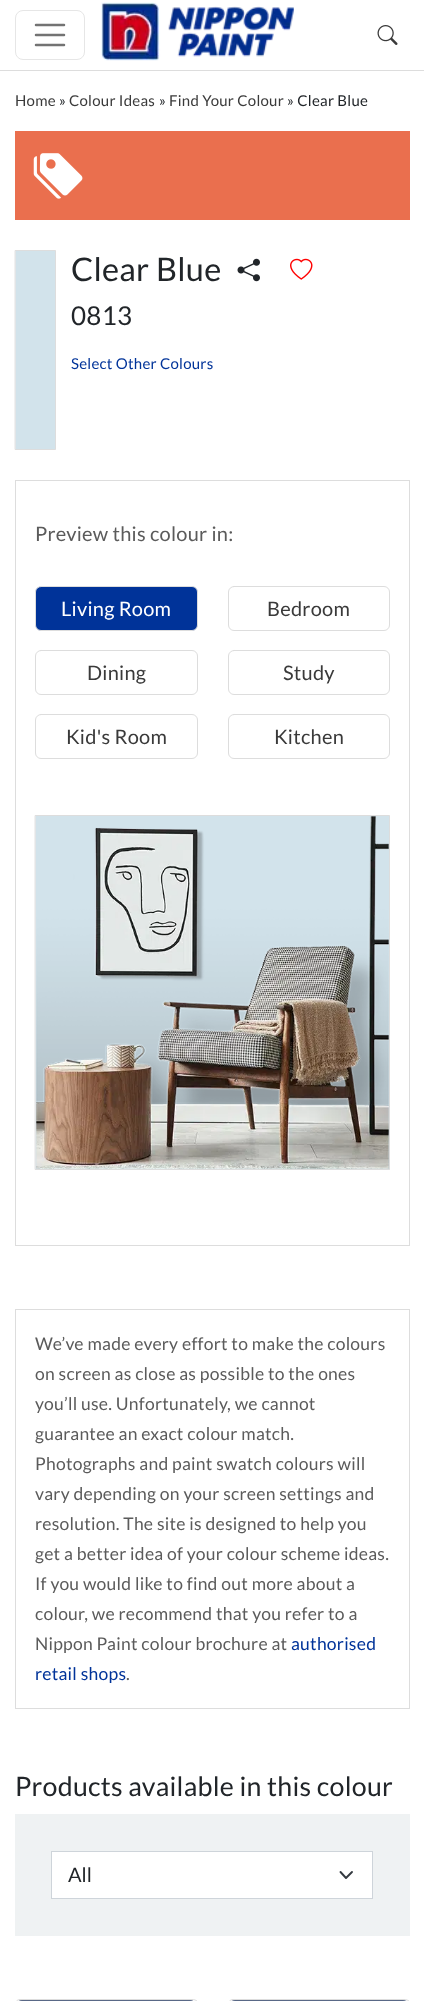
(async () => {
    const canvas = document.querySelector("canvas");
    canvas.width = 424;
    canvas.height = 2001;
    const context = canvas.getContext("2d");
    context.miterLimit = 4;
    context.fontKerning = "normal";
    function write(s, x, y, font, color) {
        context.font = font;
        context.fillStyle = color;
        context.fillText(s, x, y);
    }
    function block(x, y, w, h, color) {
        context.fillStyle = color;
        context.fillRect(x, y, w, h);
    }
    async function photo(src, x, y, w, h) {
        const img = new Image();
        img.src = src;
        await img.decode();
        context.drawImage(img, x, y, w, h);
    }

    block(0, 0, 424, 2001, "rgb(255, 255, 255)");
    block(0, 70, 424, 1, "rgb(221, 221, 221)");
    context.beginPath();
    context.roundRect(15.5, 10.5, 69, 49, 7.5);
    context.strokeStyle = "rgb(230, 230, 230)";
    context.stroke();
    context.beginPath();
    context.moveTo(36, 25);
    context.lineTo(64, 25);
    context.moveTo(36, 35);
    context.lineTo(64, 35);
    context.moveTo(36, 45);
    context.lineTo(64, 45);
    context.strokeStyle = "rgb(115, 115, 115)";
    context.lineWidth = 2.5;
    context.lineCap = "round";
    context.stroke();
    await photo("media/1.png", 101, 2, 193, 59);
    await photo("media/2.png", 377, 25, 21, 20);
    context.letterSpacing = "0.25px";
    write("Home", 15, 106, "15px Lato", "rgb(58, 58, 58)");
    write("»", 59, 106, "15px Lato", "rgb(33, 37, 41)");
    write("Colour Ideas", 69, 106, "15px Lato", "rgb(58, 58, 58)");
    write("»", 159, 106, "15px Lato", "rgb(33, 37, 41)");
    write("Find Your Colour", 169, 106, "15px Lato", "rgb(58, 58, 58)");
    write("» Clear Blue", 287, 106, "15px Lato", "rgb(33, 37, 41)");
    block(15, 131, 395, 89, "rgb(234, 111, 78)");
    await photo("media/3.png", 33, 153, 50, 46);
    context.fillStyle = "rgb(210, 227, 235)";
    context.beginPath();
    context.rect(15.5, 250.5, 40, 199);
    context.fill();
    context.strokeStyle = "rgb(221, 221, 221)";
    context.lineWidth = 1;
    context.stroke();
    write("Clear Blue", 71, 281, "32.5px Lato", "rgb(33, 37, 41)");
    await photo("media/4.png", 237, 258, 23, 24);
    await photo("media/5.png", 290, 258, 23, 22);
    write("0813", 71, 325, "26px Lato", "rgb(33, 37, 41)");
    write("Select Other Colours", 71, 369, "15px Lato", "rgb(0, 51, 153)");
    context.strokeRect(15.5, 480.5, 394, 765);
    write("Preview this colour in:", 35, 541, "20px Lato", "rgb(91, 91, 91)");
    context.fillStyle = "rgb(0, 51, 153)";
    context.beginPath();
    context.roundRect(35.5, 586.5, 162, 44, 5.5);
    context.fill();
    context.stroke();
    write("Living Room", 61, 616, "20px Lato", "rgb(255, 255, 255)");
    context.beginPath();
    context.roundRect(228.5, 586.5, 161, 44, 5.5);
    context.stroke();
    write("Bedroom", 267, 616, "20px Lato", "rgb(58, 58, 58)");
    context.beginPath();
    context.roundRect(35.5, 650.5, 162, 44, 5.5);
    context.stroke();
    write("Dining", 87, 680, "20px Lato", "rgb(58, 58, 58)");
    context.beginPath();
    context.roundRect(228.5, 650.5, 161, 44, 5.5);
    context.stroke();
    write("Study", 283, 680, "20px Lato", "rgb(58, 58, 58)");
    context.beginPath();
    context.roundRect(35.5, 714.5, 162, 44, 5.5);
    context.stroke();
    write("Kid's Room", 66, 744, "20px Lato", "rgb(58, 58, 58)");
    context.beginPath();
    context.roundRect(228.5, 714.5, 161, 44, 5.5);
    context.stroke();
    write("Kitchen", 274, 744, "20px Lato", "rgb(58, 58, 58)");
    context.fillStyle = "rgb(210, 227, 235)";
    context.beginPath();
    context.rect(35.5, 815.5, 354, 354);
    context.fill();
    context.stroke();
    await photo("media/6.png", 36, 816, 353, 353);
    context.strokeRect(15.5, 1309.5, 394, 399);
    write("We’ve made every effort to make the colours", 35, 1350, "17.5px Lato", "rgb(91, 91, 91)");
    write("on screen as close as possible to the ones", 35, 1380, "17.5px Lato", "rgb(91, 91, 91)");
    write("you’ll use. Unfortunately, we cannot", 35, 1410, "17.5px Lato", "rgb(91, 91, 91)");
    write("guarantee an exact colour match.", 35, 1440, "17.5px Lato", "rgb(91, 91, 91)");
    write("Photographs and paint swatch colours will", 35, 1470, "17.5px Lato", "rgb(91, 91, 91)");
    write("vary depending on your screen settings and", 35, 1500, "17.5px Lato", "rgb(91, 91, 91)");
    write("resolution. The site is designed to help you", 35, 1530, "17.5px Lato", "rgb(91, 91, 91)");
    write("get a better idea of your colour scheme ideas.", 35, 1560, "17.5px Lato", "rgb(91, 91, 91)");
    write("If you would like to find out more about a", 35, 1590, "17.5px Lato", "rgb(91, 91, 91)");
    write("colour, we recommend that you refer to a", 35, 1620, "17.5px Lato", "rgb(91, 91, 91)");
    write("Nippon Paint colour brochure at", 35, 1650, "17.5px Lato", "rgb(91, 91, 91)");
    write("authorised", 291, 1650, "17.5px Lato", "rgb(0, 51, 153)");
    write("retail shops", 35, 1680, "17.5px Lato", "rgb(0, 51, 153)");
    write(".", 126, 1680, "17.5px Lato", "rgb(91, 91, 91)");
    write("Products available in this colour", 15, 1796, "26.75px Lato", "rgb(33, 37, 41)");
    block(15, 1814, 395, 122, "rgb(239, 242, 243)");
    block(52, 1852, 320, 46, "rgb(255, 255, 255)");
    context.beginPath();
    context.moveTo(340.5, 1872);
    context.lineTo(346, 1878);
    context.lineTo(352, 1872);
    context.strokeStyle = "rgb(52, 58, 64)";
    context.lineWidth = 1.9;
    context.lineJoin = "round";
    context.stroke();
    context.strokeStyle = "rgb(206, 212, 218)";
    context.lineWidth = 1;
    context.lineJoin = "miter";
    context.strokeRect(51.5, 1851.5, 321, 47);
    context.letterSpacing = "0px";
    write("All", 68, 1882, "20px Lato", "rgb(33, 37, 41)");
    context.beginPath();
    context.roundRect(15.5, 1999.5, 182, 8, 5.5);
    context.strokeStyle = "rgb(221, 221, 221)";
    context.stroke();
    context.fillStyle = "rgb(89, 104, 134)";
    context.beginPath();
    context.moveTo(22, 2000);
    context.lineTo(190, 2000);
    context.bezierCurveTo(193.5, 2000, 196, 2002.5, 196, 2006);
    context.lineTo(196, 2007);
    context.lineTo(16, 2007);
    context.lineTo(16, 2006);
    context.bezierCurveTo(16, 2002.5, 18.5, 2000, 22, 2000);
    context.closePath();
    context.fill();
    context.beginPath();
    context.roundRect(228.5, 1999.5, 181, 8, 5.5);
    context.stroke();
    context.beginPath();
    context.moveTo(235, 2000);
    context.lineTo(403, 2000);
    context.bezierCurveTo(406.5, 2000, 409, 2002.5, 409, 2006);
    context.lineTo(409, 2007);
    context.lineTo(229, 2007);
    context.lineTo(229, 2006);
    context.bezierCurveTo(229, 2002.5, 231.5, 2000, 235, 2000);
    context.closePath();
    context.fill();
})();
